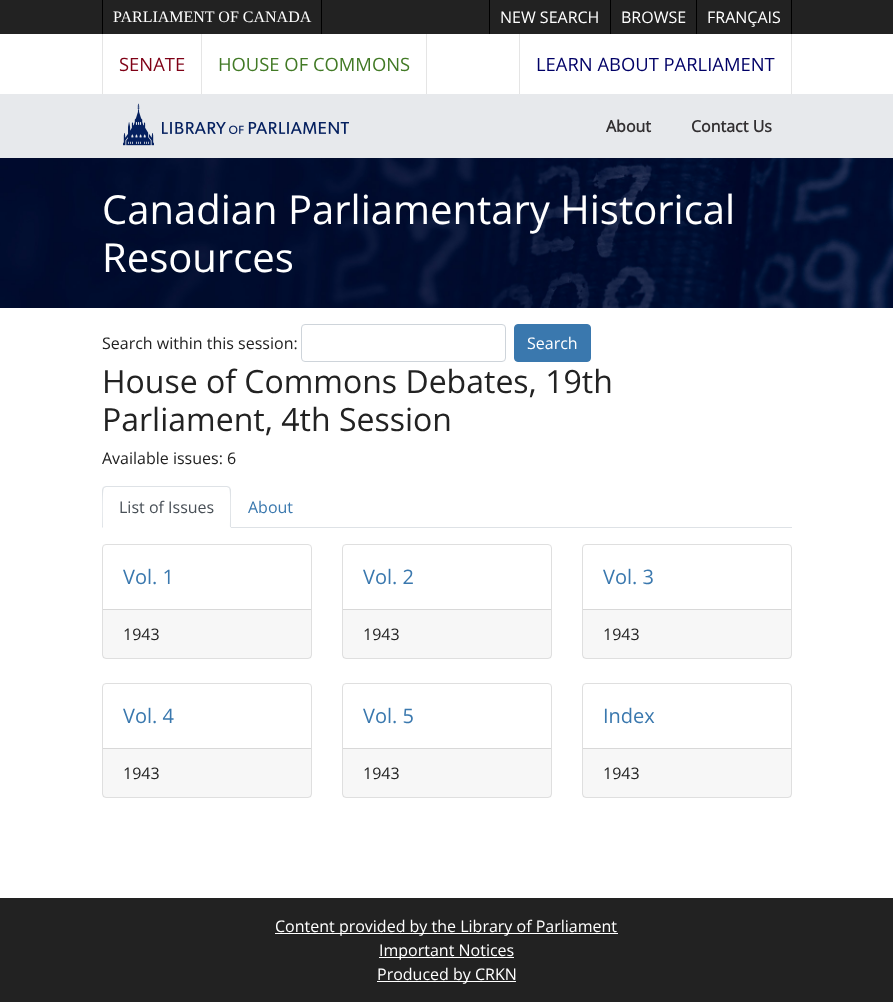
(async () => {
    const canvas = document.querySelector("canvas");
    canvas.width = 893;
    canvas.height = 1002;
    const context = canvas.getContext("2d");
    context.miterLimit = 4;
    context.fontKerning = "normal";
    function write(s, x, y, font, color) {
        context.font = font;
        context.fillStyle = color;
        context.fillText(s, x, y);
    }
    function block(x, y, w, h, color) {
        context.fillStyle = color;
        context.fillRect(x, y, w, h);
    }
    async function photo(src, x, y, w, h) {
        const img = new Image();
        img.src = src;
        await img.decode();
        context.drawImage(img, x, y, w, h);
    }

    block(0, 0, 893, 1002, "rgb(255, 255, 255)");
    block(0, 0, 893, 34, "rgb(34, 34, 34)");
    block(321, 0, 1, 34, "rgb(0, 0, 0)");
    block(102, 0, 1, 34, "rgb(0, 0, 0)");
    write("PARLIAMENT OF CANADA", 113, 22, "16px Liberation Serif", "rgb(255, 255, 255)");
    block(610, 0, 1, 34, "rgb(0, 0, 0)");
    block(489, 0, 1, 34, "rgb(0, 0, 0)");
    write("NEW SEARCH", 500, 23, "16px Open Sans", "rgb(255, 255, 255)");
    block(696, 0, 1, 34, "rgb(0, 0, 0)");
    write("BROWSE", 621, 23, "16px Open Sans", "rgb(255, 255, 255)");
    block(791, 0, 1, 34, "rgb(0, 0, 0)");
    write("FRANÇAIS", 707, 23, "16px Open Sans", "rgb(255, 255, 255)");
    block(201, 34, 1, 60, "rgb(229, 229, 229)");
    block(102, 34, 1, 60, "rgb(229, 229, 229)");
    write("SENATE", 119, 71, "18.4px Open Sans", "rgb(127, 1, 22)");
    block(426, 34, 1, 60, "rgb(229, 229, 229)");
    write("HOUSE OF COMMONS", 218, 71, "18.4px Open Sans", "rgb(66, 122, 38)");
    block(791, 34, 1, 60, "rgb(229, 229, 229)");
    block(519, 34, 1, 60, "rgb(229, 229, 229)");
    write("LEARN ABOUT PARLIAMENT", 536, 71, "18.4px Open Sans", "rgb(0, 0, 102)");
    block(0, 94, 893, 64, "rgb(231, 233, 236)");
    await photo("media/1.png", 123, 103, 226, 43);
    write("About", 606, 132, "bold 16px Open Sans", "rgb(50, 47, 49)");
    write("Contact Us", 691, 132, "bold 16px Open Sans", "rgb(50, 47, 49)");
    await photo("media/2.png", 0, 158, 893, 150);
    write("Canadian Parliamentary Historical", 102, 224, "40px Open Sans", "rgb(255, 255, 255)");
    write("Resources", 102, 272, "40px Open Sans", "rgb(255, 255, 255)");
    write("Search within this session:", 102, 349, "16px Open Sans", "rgb(34, 34, 34)");
    context.beginPath();
    context.roundRect(301.5, 324.5, 204, 37, 3.5);
    context.strokeStyle = "rgb(206, 212, 218)";
    context.stroke();
    context.fillStyle = "rgb(58, 120, 174)";
    context.beginPath();
    context.roundRect(514.5, 324.5, 76, 37, 3.5);
    context.fill();
    context.strokeStyle = "rgb(58, 120, 174)";
    context.stroke();
    write("Search", 527, 349, "16px Open Sans", "rgb(255, 255, 255)");
    write("House of Commons Debates, 19th", 102, 393, "32px Open Sans", "rgb(34, 34, 34)");
    write("Parliament, 4th Session", 102, 431, "32px Open Sans", "rgb(34, 34, 34)");
    write("Available issues: 6", 102, 464, "16px Open Sans", "rgb(34, 34, 34)");
    block(231, 527, 561, 1, "rgb(222, 226, 230)");
    context.beginPath();
    context.moveTo(106, 486);
    context.lineTo(103, 487);
    context.lineTo(104, 488);
    context.lineTo(106, 487);
    context.lineTo(227, 487);
    context.lineTo(229, 488);
    context.lineTo(230, 487);
    context.lineTo(227, 486);
    context.closePath();
    context.fill();
    context.beginPath();
    context.moveTo(231, 528);
    context.lineTo(231, 490);
    context.bezierCurveTo(231, 489, 230, 488, 230, 487);
    context.lineTo(229, 488);
    context.bezierCurveTo(231, 490, 230, 522, 230, 527);
    context.closePath();
    context.fill();
    context.fillStyle = "rgb(255, 255, 255)";
    context.beginPath();
    context.moveTo(231, 528);
    context.lineTo(230, 527);
    context.lineTo(103, 527);
    context.lineTo(102, 528);
    context.closePath();
    context.fill();
    context.fillStyle = "rgb(222, 226, 230)";
    context.beginPath();
    context.moveTo(102, 528);
    context.lineTo(103, 527);
    context.bezierCurveTo(103, 522, 102, 490, 104, 488);
    context.lineTo(103, 487);
    context.lineTo(102, 490);
    context.closePath();
    context.fill();
    write("List of Issues", 119, 513, "16px Open Sans", "rgb(73, 80, 87)");
    write("About", 248, 513, "16px Open Sans", "rgb(58, 120, 174)");
    context.beginPath();
    context.roundRect(102.5, 544.5, 209, 114, 3.5);
    context.strokeStyle = "rgb(223, 223, 223)";
    context.stroke();
    write("Vol. 1", 123, 584, "20px Open Sans", "rgb(58, 120, 174)");
    block(103, 610, 208, 48, "rgba(0, 0, 0, 0.03)");
    block(103, 609, 208, 1, "rgb(216, 216, 216)");
    write("1943", 123, 640, "16px Open Sans", "rgb(34, 34, 34)");
    context.beginPath();
    context.roundRect(342.5, 544.5, 209, 114, 3.5);
    context.stroke();
    write("Vol. 2", 363, 584, "20px Open Sans", "rgb(58, 120, 174)");
    block(343, 610, 208, 48, "rgba(0, 0, 0, 0.03)");
    block(343, 609, 208, 1, "rgb(216, 216, 216)");
    write("1943", 363, 640, "16px Open Sans", "rgb(34, 34, 34)");
    context.beginPath();
    context.roundRect(582.5, 544.5, 209, 114, 3.5);
    context.stroke();
    write("Vol. 3", 603, 584, "20px Open Sans", "rgb(58, 120, 174)");
    block(583, 610, 208, 48, "rgba(0, 0, 0, 0.03)");
    block(583, 609, 208, 1, "rgb(216, 216, 216)");
    write("1943", 603, 640, "16px Open Sans", "rgb(34, 34, 34)");
    context.beginPath();
    context.roundRect(102.5, 683.5, 209, 114, 3.5);
    context.stroke();
    write("Vol. 4", 123, 723, "20px Open Sans", "rgb(58, 120, 174)");
    block(103, 749, 208, 48, "rgba(0, 0, 0, 0.03)");
    block(103, 748, 208, 1, "rgb(216, 216, 216)");
    write("1943", 123, 779, "16px Open Sans", "rgb(34, 34, 34)");
    context.beginPath();
    context.roundRect(342.5, 683.5, 209, 114, 3.5);
    context.stroke();
    write("Vol. 5", 363, 723, "20px Open Sans", "rgb(58, 120, 174)");
    block(343, 749, 208, 48, "rgba(0, 0, 0, 0.03)");
    block(343, 748, 208, 1, "rgb(216, 216, 216)");
    write("1943", 363, 779, "16px Open Sans", "rgb(34, 34, 34)");
    context.beginPath();
    context.roundRect(582.5, 683.5, 209, 114, 3.5);
    context.stroke();
    write("Index", 603, 723, "20px Open Sans", "rgb(58, 120, 174)");
    block(583, 749, 208, 48, "rgba(0, 0, 0, 0.03)");
    block(583, 748, 208, 1, "rgb(216, 216, 216)");
    write("1943", 603, 779, "16px Open Sans", "rgb(34, 34, 34)");
    block(0, 898, 893, 104, "rgb(34, 34, 34)");
    block(275, 933, 343, 1, "rgb(255, 255, 255)");
    write("Content provided by the Library of Parliament", 275, 932, "16px Open Sans", "rgb(255, 255, 255)");
    block(379, 957, 135, 1, "rgb(255, 255, 255)");
    write("Important Notices", 379, 956, "16px Open Sans", "rgb(255, 255, 255)");
    block(377, 981, 139, 1, "rgb(255, 255, 255)");
    write("Produced by CRKN", 377, 980, "16px Open Sans", "rgb(255, 255, 255)");
})();
